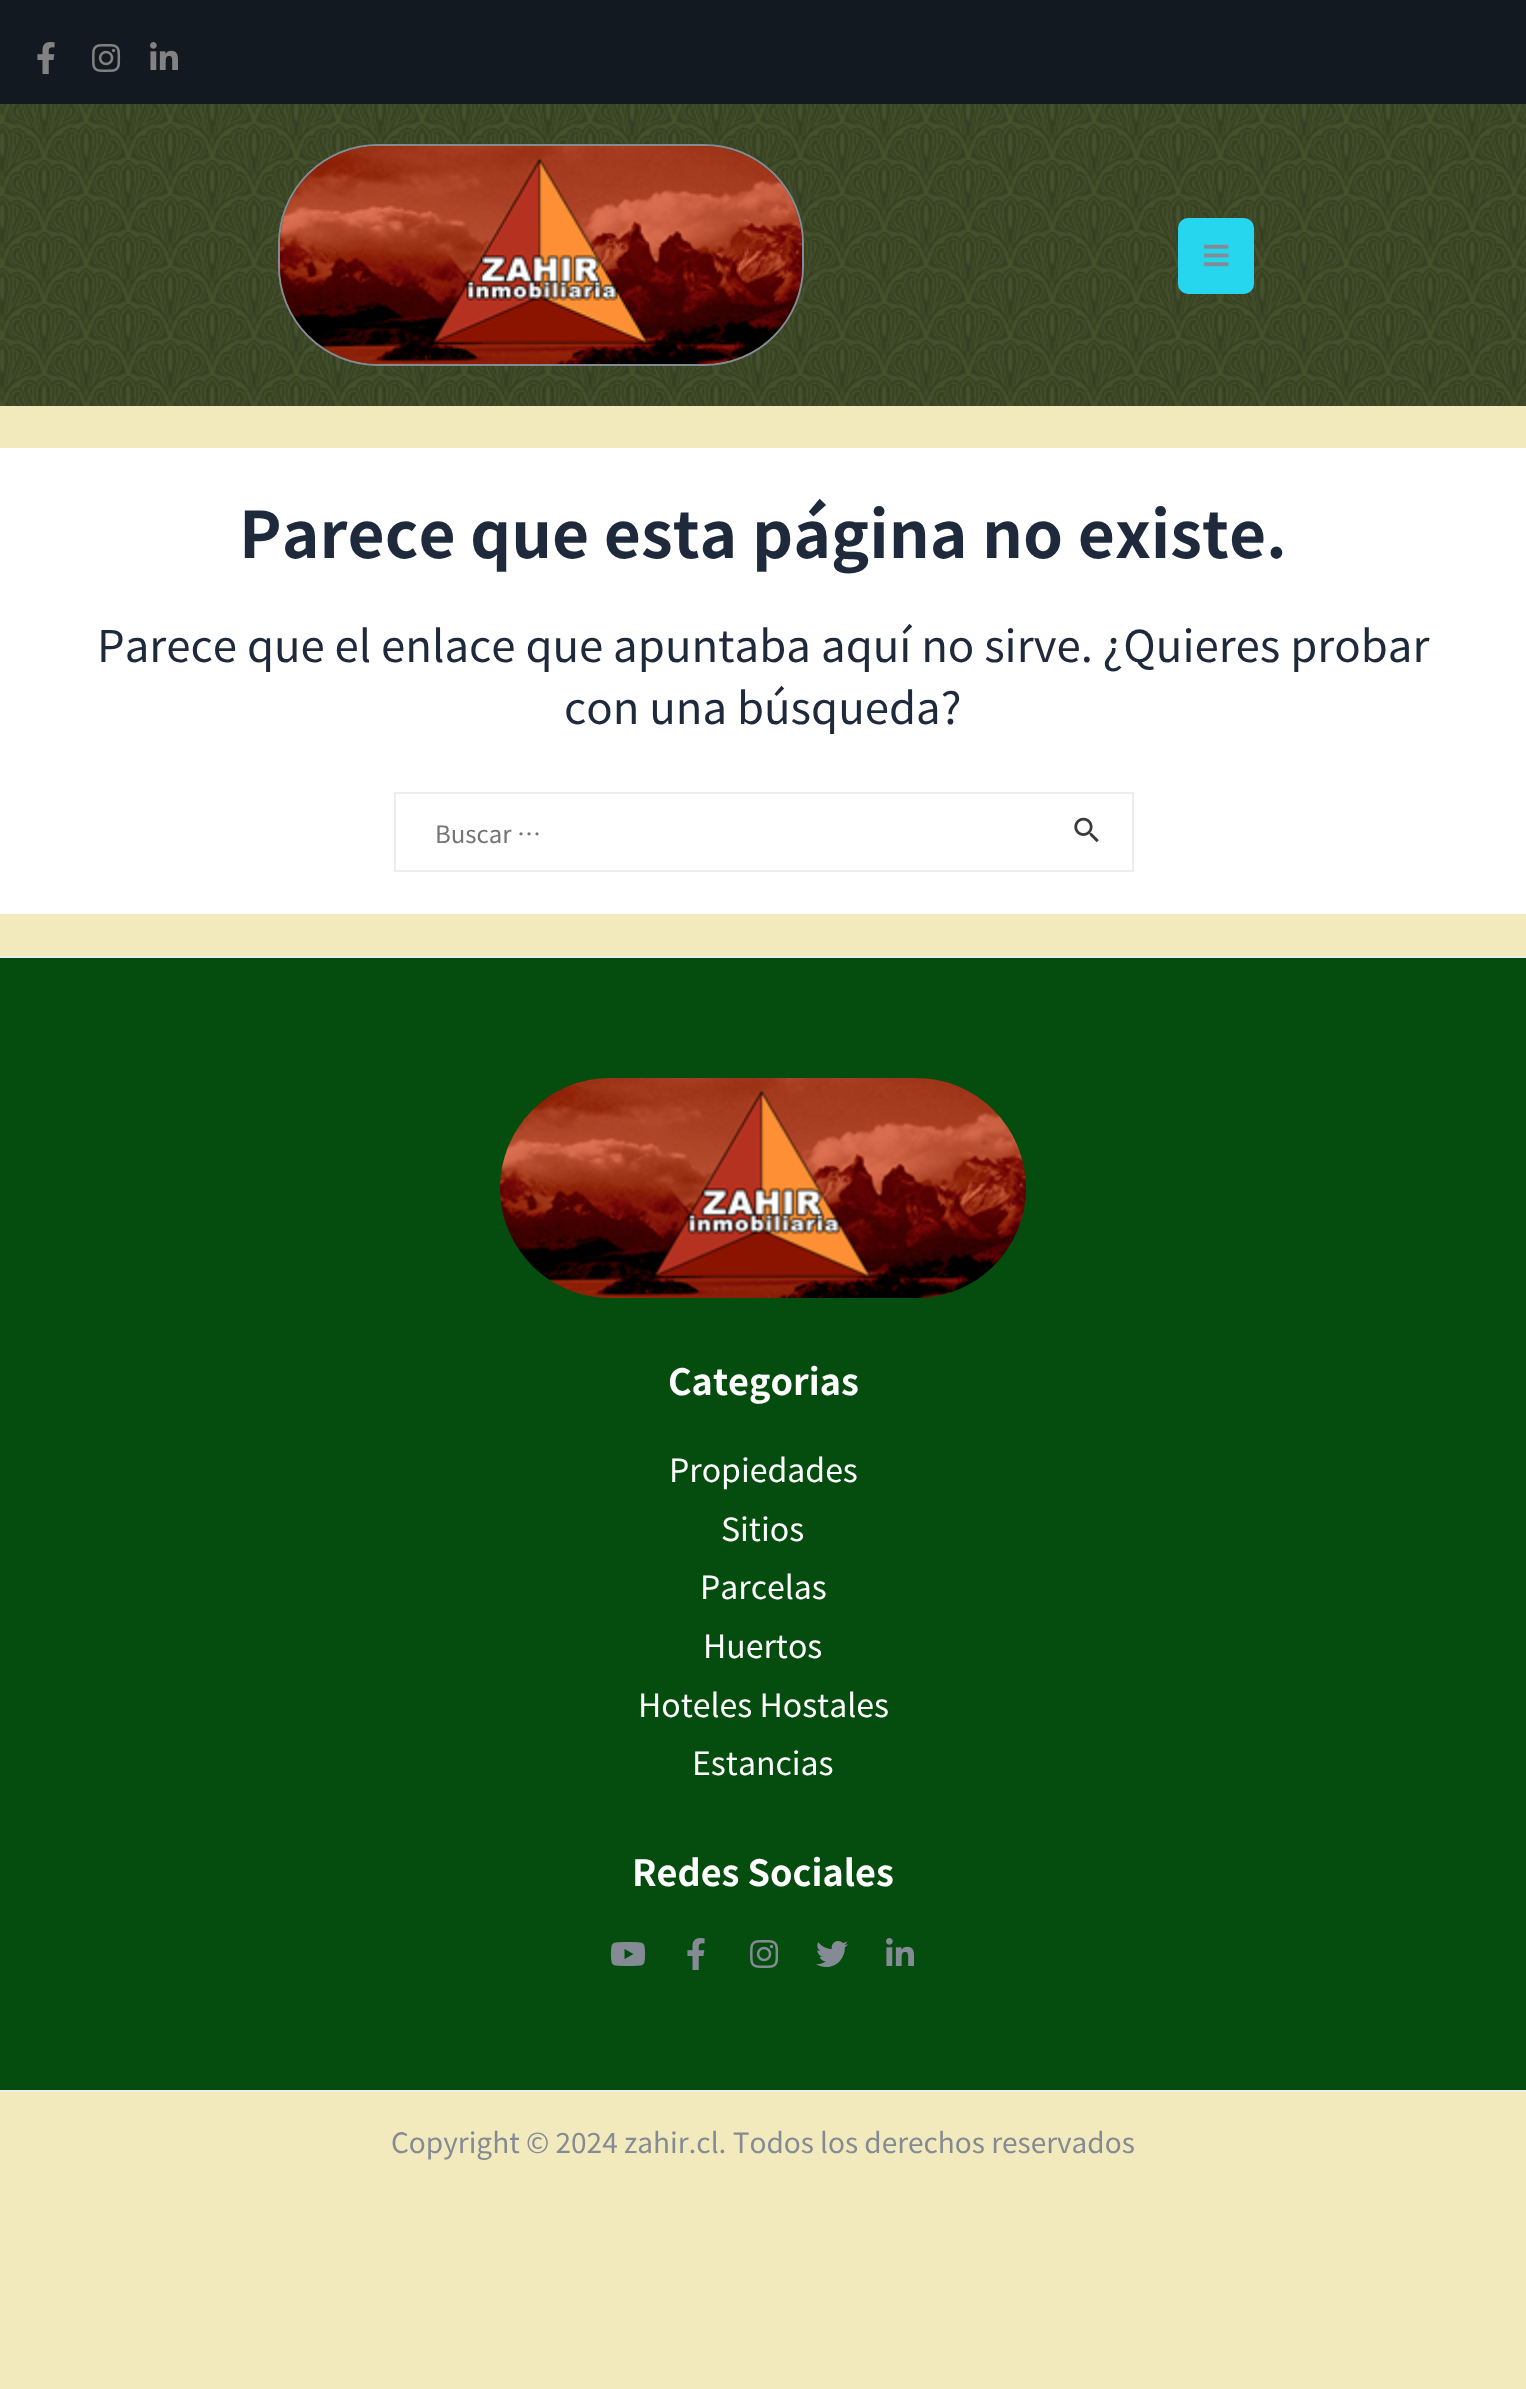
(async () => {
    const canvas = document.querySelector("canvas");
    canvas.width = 1526;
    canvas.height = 2389;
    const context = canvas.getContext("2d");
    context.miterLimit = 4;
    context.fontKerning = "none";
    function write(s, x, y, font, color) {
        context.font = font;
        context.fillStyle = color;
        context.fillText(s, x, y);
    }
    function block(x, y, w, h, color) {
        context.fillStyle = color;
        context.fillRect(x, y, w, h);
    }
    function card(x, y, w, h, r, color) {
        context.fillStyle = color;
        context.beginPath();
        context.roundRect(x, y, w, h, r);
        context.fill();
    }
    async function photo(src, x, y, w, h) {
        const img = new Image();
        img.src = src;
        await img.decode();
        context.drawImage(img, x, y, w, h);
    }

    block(0, 0, 1526, 2389, "rgb(242, 234, 188)");
    block(0, 0, 1526, 104, "rgb(19, 25, 33)");
    await photo("media/1.png", 37, 42, 18, 32);
    await photo("media/2.png", 92, 44, 29, 28);
    await photo("media/3.png", 150, 42, 28, 28);
    await photo("media/4.png", 0, 104, 1526, 302);
    context.beginPath();
    context.roundRect(279, 145, 524, 220, 99);
    context.strokeStyle = "rgb(133, 139, 148)";
    context.lineWidth = 2;
    context.stroke();
    await photo("media/5.png", 280, 146, 522, 218);
    card(1178, 218, 76, 76, 10, "rgb(38, 214, 239)");
    await photo("media/6.png", 1204, 244, 25, 23);
    block(0, 448, 1526, 466, "rgb(255, 255, 255)");
    write("Parece que esta", 239, 558, "bold 64px Noto Sans JP", "rgb(30, 41, 59)");
    write("página no existe.", 752, 558, "bold 64px Noto Sans JP", "rgb(30, 41, 59)");
    write("Parece que el enlace que apuntaba", 97, 662, "43.75px Noto Sans JP", "rgb(30, 41, 59)");
    write("aquí no sirve. ¿Quieres probar", 821, 662, "43.75px Noto Sans JP", "rgb(30, 41, 59)");
    write("con una búsqueda?", 564, 724, "43.75px Noto Sans JP", "rgb(30, 41, 59)");
    context.strokeStyle = "rgb(237, 237, 237)";
    context.strokeRect(395, 793, 738, 78);
    write("Buscar …", 435, 843, "24px Noto Sans JP", "rgb(117, 117, 117)");
    await photo("media/7.png", 1074, 817, 25, 26);
    block(0, 958, 1526, 1132, "rgb(4, 77, 14)");
    block(0, 956, 1526, 2, "rgb(237, 237, 237)");
    await photo("media/8.png", 500, 1078, 526, 220);
    write("Categorias", 668, 1395, "bold 36px Noto Sans JP", "rgb(255, 255, 255)");
    write("Propiedades", 669, 1482, "32px Noto Sans JP", "rgb(255, 255, 255)");
    write("Sitios", 721, 1541, "32px Noto Sans JP", "rgb(255, 255, 255)");
    write("Parcelas", 700, 1599, "32px Noto Sans JP", "rgb(255, 255, 255)");
    write("Huertos", 703, 1658, "32px Noto Sans JP", "rgb(255, 255, 255)");
    write("Hoteles Hostales", 638, 1717, "32px Noto Sans JP", "rgb(255, 255, 255)");
    write("Estancias", 692, 1775, "32px Noto Sans JP", "rgb(255, 255, 255)");
    write("Redes Sociales", 632, 1886, "bold 36px Noto Sans JP", "rgb(255, 255, 255)");
    await photo("media/9.png", 610, 1942, 36, 24);
    await photo("media/10.png", 687, 1938, 18, 32);
    await photo("media/11.png", 750, 1940, 29, 28);
    await photo("media/12.png", 816, 1941, 32, 26);
    await photo("media/13.png", 886, 1938, 28, 28);
    block(0, 2090, 1526, 2, "rgb(237, 237, 237)");
    write("Copyright © 2024 zahir.cl. Todos", 391, 2153, "28px Noto Sans JP", "rgb(133, 139, 148)");
    write("los derechos reservados", 820, 2153, "28px Noto Sans JP", "rgb(133, 139, 148)");
})();
